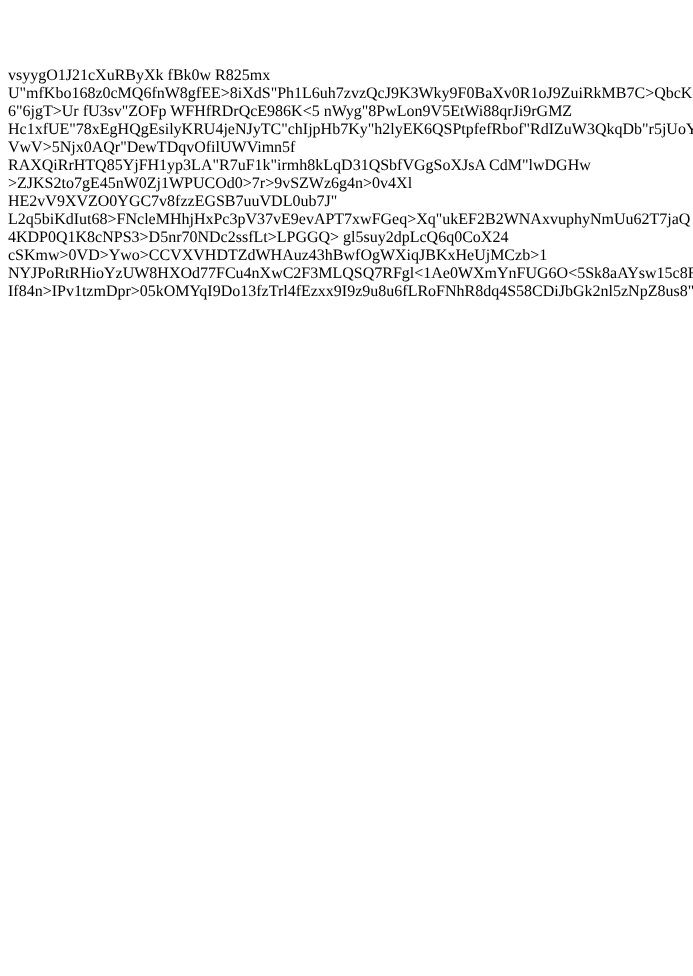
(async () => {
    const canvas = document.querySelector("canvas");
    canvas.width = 693;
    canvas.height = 976;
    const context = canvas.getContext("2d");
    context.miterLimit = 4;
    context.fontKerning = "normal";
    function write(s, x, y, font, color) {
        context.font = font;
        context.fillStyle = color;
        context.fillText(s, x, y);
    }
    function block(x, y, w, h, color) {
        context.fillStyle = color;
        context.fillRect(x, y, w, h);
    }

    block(0, 0, 693, 976, "rgb(255, 255, 255)");
    write("vsyygO1J21cXuRByXk fBk0w R825mx", 8, 80, "16px Liberation Serif", "rgb(0, 0, 0)");
    write("U\"mfKbo168z0cMQ6fnW8gfEE>8iXdS\"Ph1L6uh7zvzQcJ9K3Wky9F0BaXv0R1oJ9ZuiRkMB7C>QbcK", 8, 98, "16px Liberation Serif", "rgb(0, 0, 0)");
    write("6\"6jgT>Ur fU3sv\"ZOFp WFHfRDrQcE986K<5 nWyg\"8PwLon9V5EtWi88qrJi9rGMZ", 8, 116, "16px Liberation Serif", "rgb(0, 0, 0)");
    write("Hc1xfUE\"78xEgHQgEsilyKRU4jeNJyTC\"chIjpHb7Ky\"h2lyEK6QSPtpfefRbof\"RdIZuW3QkqDb\"r5jUoY", 8, 134, "16px Liberation Serif", "rgb(0, 0, 0)");
    write("VwV>5Njx0AQr\"DewTDqvOfilUWVimn5f", 8, 152, "16px Liberation Serif", "rgb(0, 0, 0)");
    write("RAXQiRrHTQ85YjFH1yp3LA\"R7uF1k\"irmh8kLqD31QSbfVGgSoXJsA CdM\"lwDGHw", 8, 170, "16px Liberation Serif", "rgb(0, 0, 0)");
    write(">ZJKS2to7gE45nW0Zj1WPUCOd0>7r>9vSZWz6g4n>0v4Xl", 8, 188, "16px Liberation Serif", "rgb(0, 0, 0)");
    write("HE2vV9XVZO0YGC7v8fzzEGSB7uuVDL0ub7J\"", 8, 206, "16px Liberation Serif", "rgb(0, 0, 0)");
    write("L2q5biKdIut68>FNcleMHhjHxPc3pV37vE9evAPT7xwFGeq>Xq\"ukEF2B2WNAxvuphyNmUu62T7jaQ", 8, 224, "16px Liberation Serif", "rgb(0, 0, 0)");
    write("4KDP0Q1K8cNPS3>D5nr70NDc2ssfLt>LPGGQ> gl5suy2dpLcQ6q0CoX24", 8, 242, "16px Liberation Serif", "rgb(0, 0, 0)");
    write("cSKmw>0VD>Ywo>CCVXVHDTZdWHAuz43hBwfOgWXiqJBKxHeUjMCzb>1", 8, 260, "16px Liberation Serif", "rgb(0, 0, 0)");
    write("NYJPoRtRHioYzUW8HXOd77FCu4nXwC2F3MLQSQ7RFgl<1Ae0WXmYnFUG6O<5Sk8aAYsw15c8F", 8, 278, "16px Liberation Serif", "rgb(0, 0, 0)");
    write("If84n>IPv1tzmDpr>05kOMYqI9Do13fzTrl4fEzxx9I9z9u8u6fLRoFNhR8dq4S58CDiJbGk2nl5zNpZ8us8\"", 8, 296, "16px Liberation Serif", "rgb(0, 0, 0)");
})();
